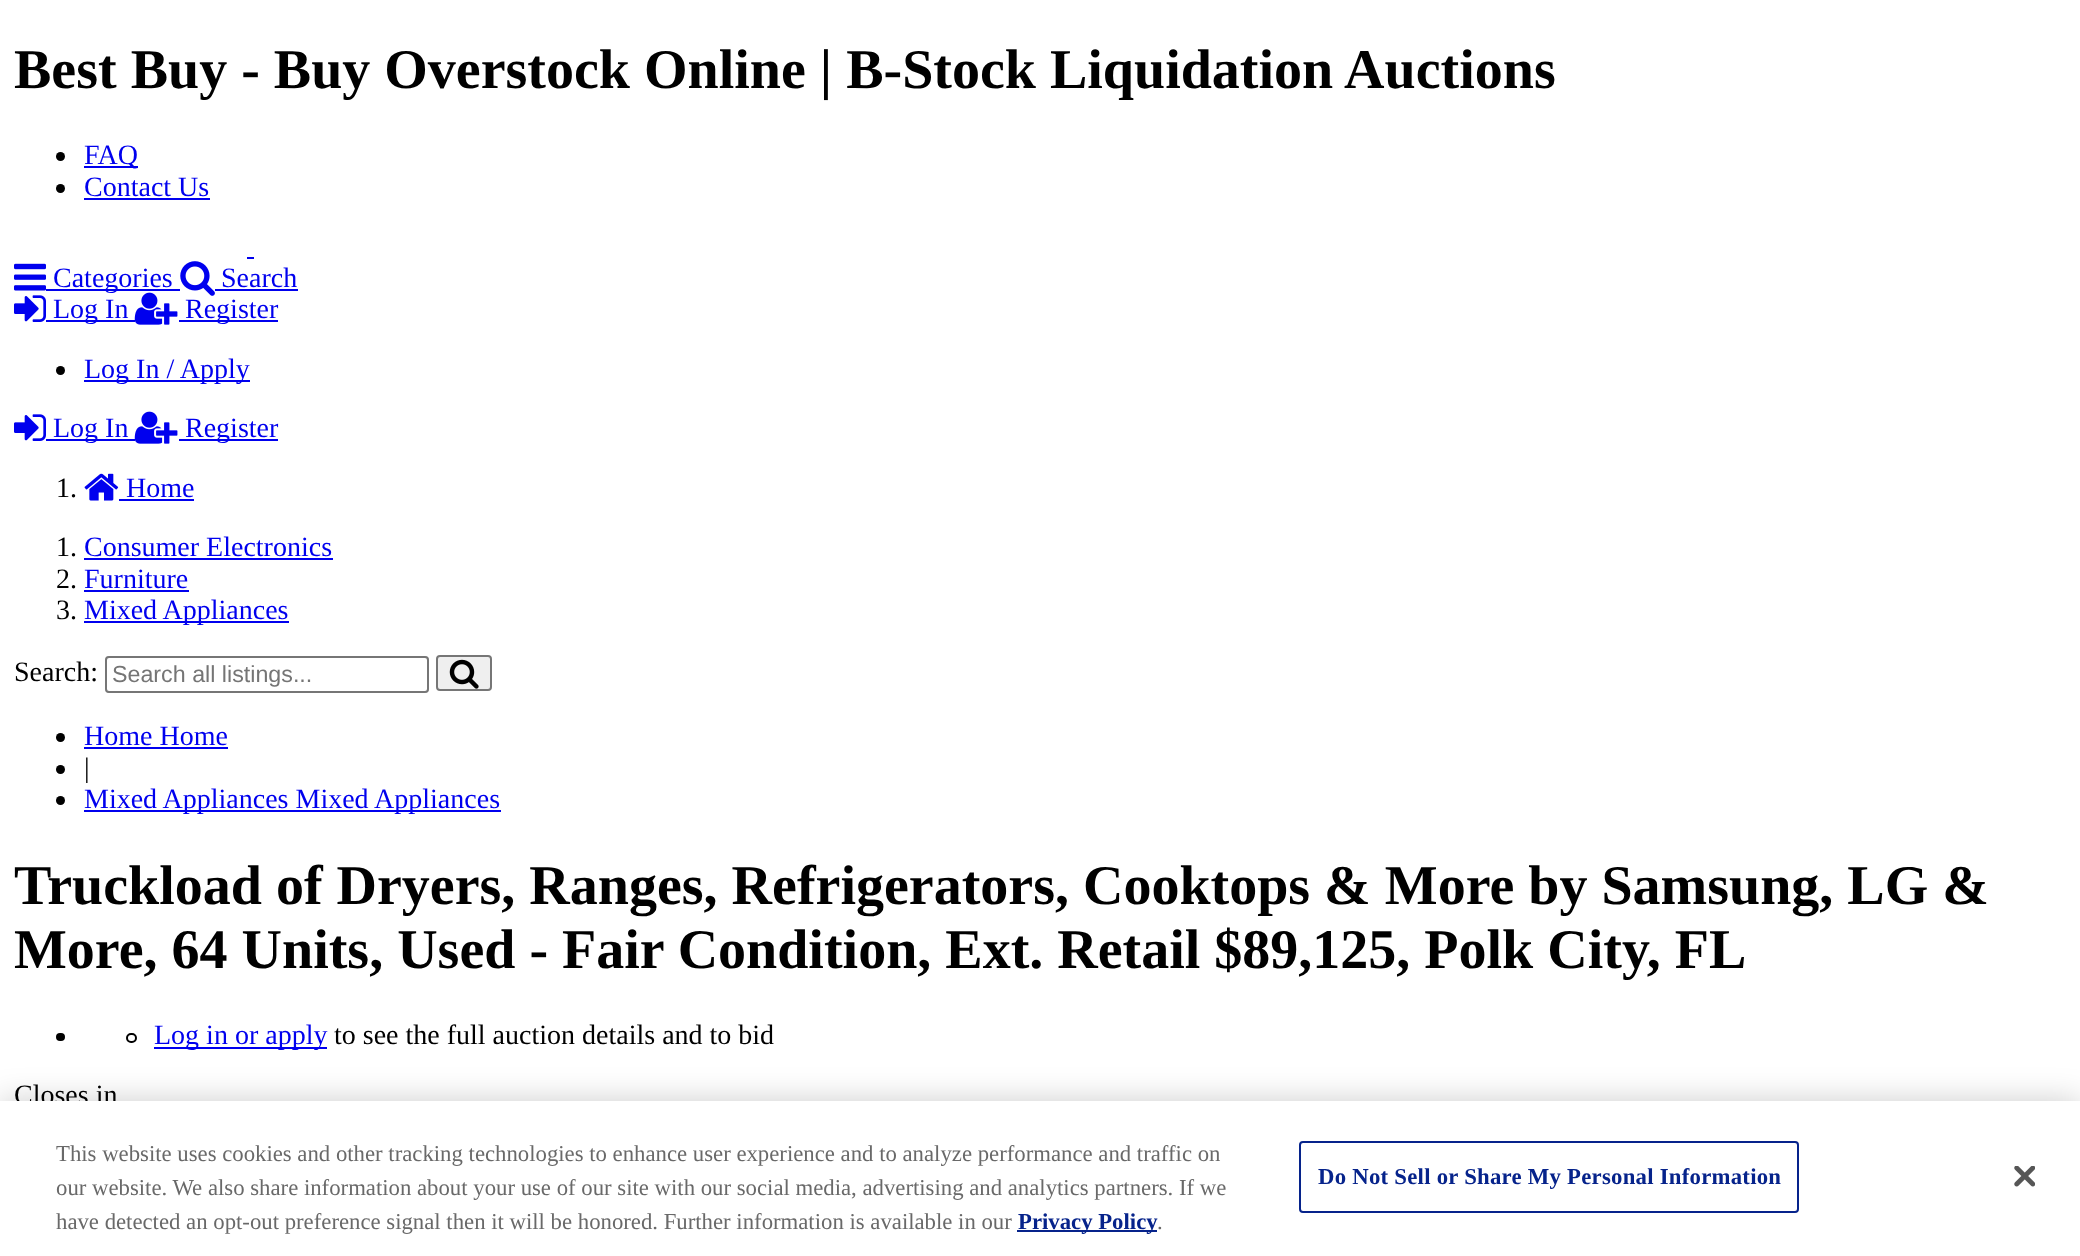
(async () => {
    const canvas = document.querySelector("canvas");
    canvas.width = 2080;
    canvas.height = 1256;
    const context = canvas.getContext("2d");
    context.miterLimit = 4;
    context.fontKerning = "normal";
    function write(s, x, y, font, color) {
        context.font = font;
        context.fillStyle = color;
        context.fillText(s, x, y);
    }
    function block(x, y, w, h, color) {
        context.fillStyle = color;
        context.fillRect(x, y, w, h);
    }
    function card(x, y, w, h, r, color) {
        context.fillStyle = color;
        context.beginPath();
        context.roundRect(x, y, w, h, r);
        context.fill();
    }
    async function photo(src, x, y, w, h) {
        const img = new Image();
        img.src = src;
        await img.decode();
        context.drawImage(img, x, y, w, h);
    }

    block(0, 0, 2080, 1256, "rgb(255, 255, 255)");
    write("Best Buy - Buy Overstock Online | B-Stock Liquidation Auctions", 14, 88, "bold 56px Liberation Serif", "rgb(0, 0, 0)");
    context.beginPath();
    context.arc(60.5, 156.5, 4.5, 0, Math.PI * 2);
    context.fill();
    block(84, 166, 54, 2, "rgb(0, 0, 238)");
    write("FAQ", 84, 164, "28px Liberation Serif", "rgb(0, 0, 238)");
    context.fillStyle = "rgb(0, 0, 0)";
    context.beginPath();
    context.arc(60.5, 188.5, 4.5, 0, Math.PI * 2);
    context.fill();
    write("Contact Us", 84, 196, "28px Liberation Serif", "rgb(0, 0, 238)");
    block(84, 198, 126, 2, "rgb(0, 0, 238)");
    block(247, 257, 7, 2, "rgb(0, 0, 238)");
    await photo("media/1.png", 14, 263, 32, 28);
    block(46, 289, 134, 2, "rgb(0, 0, 238)");
    write("Categories", 53, 287, "28px Liberation Serif", "rgb(0, 0, 238)");
    await photo("media/2.png", 180, 261, 35, 35);
    block(215, 289, 83, 2, "rgb(0, 0, 238)");
    write("Search", 221, 287, "28px Liberation Serif", "rgb(0, 0, 238)");
    await photo("media/3.png", 14, 295, 32, 27);
    block(46, 320, 89, 2, "rgb(0, 0, 238)");
    write("Log In", 53, 318, "28px Liberation Serif", "rgb(0, 0, 238)");
    await photo("media/4.png", 134, 292, 44, 33);
    block(179, 320, 99, 2, "rgb(0, 0, 238)");
    write("Register", 185, 318, "28px Liberation Serif", "rgb(0, 0, 238)");
    context.fillStyle = "rgb(0, 0, 0)";
    context.beginPath();
    context.arc(60.5, 370.5, 4.5, 0, Math.PI * 2);
    context.fill();
    block(84, 380, 166, 2, "rgb(0, 0, 238)");
    write("Log In / Apply", 84, 378, "28px Liberation Serif", "rgb(0, 0, 238)");
    await photo("media/3.png", 14, 414, 32, 27);
    block(46, 439, 89, 2, "rgb(0, 0, 238)");
    write("Log In", 53, 437, "28px Liberation Serif", "rgb(0, 0, 238)");
    await photo("media/4.png", 134, 411, 44, 33);
    block(179, 439, 99, 2, "rgb(0, 0, 238)");
    write("Register", 185, 437, "28px Liberation Serif", "rgb(0, 0, 238)");
    write("1.", 56, 497, "28px Liberation Serif", "rgb(0, 0, 0)");
    await photo("media/5.png", 84, 473, 35, 28);
    write("Home", 126, 497, "28px Liberation Serif", "rgb(0, 0, 238)");
    block(119, 499, 75, 2, "rgb(0, 0, 238)");
    write("1.", 56, 556, "28px Liberation Serif", "rgb(0, 0, 0)");
    write("Consumer Electronics", 84, 556, "28px Liberation Serif", "rgb(0, 0, 238)");
    block(84, 558, 249, 2, "rgb(0, 0, 238)");
    write("2.", 56, 588, "28px Liberation Serif", "rgb(0, 0, 0)");
    write("Furniture", 84, 588, "28px Liberation Serif", "rgb(0, 0, 238)");
    block(84, 590, 105, 2, "rgb(0, 0, 238)");
    write("3.", 56, 619, "28px Liberation Serif", "rgb(0, 0, 0)");
    block(84, 621, 205, 2, "rgb(0, 0, 238)");
    write("Mixed Appliances", 84, 619, "28px Liberation Serif", "rgb(0, 0, 238)");
    write("Search:", 14, 681, "28px Liberation Serif", "rgb(0, 0, 0)");
    context.beginPath();
    context.roundRect(106, 657, 322, 35, 3);
    context.strokeStyle = "rgb(214, 214, 214)";
    context.lineWidth = 2;
    context.stroke();
    context.fillStyle = "rgb(255, 255, 255)";
    context.beginPath();
    context.roundRect(106, 657, 322, 35, 3);
    context.fill();
    context.strokeStyle = "rgb(118, 118, 118)";
    context.stroke();
    write("Search all listings...", 112, 682, "23.25px Liberation Sans", "rgb(117, 117, 117)");
    context.fillStyle = "rgb(239, 239, 239)";
    context.beginPath();
    context.roundRect(437, 656, 54, 34, 3);
    context.fill();
    context.stroke();
    await photo("media/6.png", 449, 659, 30, 30);
    context.fillStyle = "rgb(0, 0, 0)";
    context.beginPath();
    context.arc(60.5, 737.5, 4.5, 0, Math.PI * 2);
    context.fill();
    write("Home Home", 84, 745, "28px Liberation Serif", "rgb(0, 0, 238)");
    block(84, 747, 144, 2, "rgb(0, 0, 238)");
    context.fillStyle = "rgb(0, 0, 0)";
    context.beginPath();
    context.arc(60.5, 769.5, 4.5, 0, Math.PI * 2);
    context.fill();
    write("|", 84, 777, "28px Liberation Serif", "rgb(0, 0, 0)");
    context.beginPath();
    context.arc(60.5, 800.5, 4.5, 0, Math.PI * 2);
    context.fill();
    block(84, 810, 417, 2, "rgb(0, 0, 238)");
    write("Mixed Appliances Mixed Appliances", 84, 808, "28px Liberation Serif", "rgb(0, 0, 238)");
    write("Truckload of Dryers, Ranges, Refrigerators, Cooktops & More by Samsung, LG &", 14, 904, "bold 56px Liberation Serif", "rgb(0, 0, 0)");
    write("More, 64 Units, Used - Fair Condition, Ext. Retail $89,125, Polk City, FL", 14, 968, "bold 56px Liberation Serif", "rgb(0, 0, 0)");
    card(56, 1033, 9, 8, 4, "rgb(0, 0, 0)");
    context.beginPath();
    context.roundRect(127, 1034, 9, 8, 4);
    context.strokeStyle = "rgb(0, 0, 0)";
    context.stroke();
    block(154, 1047, 173, 2, "rgb(0, 0, 238)");
    write("Log in or apply", 154, 1044, "28px Liberation Serif", "rgb(0, 0, 238)");
    write("to see the full auction details and to bid", 334, 1044, "28px Liberation Serif", "rgb(0, 0, 0)");
    write("Closes in", 14, 1104, "28px Liberation Serif", "rgb(0, 0, 0)");
    context.fillStyle = "rgba(0, 0, 0, 0.2)";
    context.filter = "blur(16px)";
    context.beginPath();
    context.rect(0, 1101, 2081, 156);
    context.fill();
    context.filter = "none";
    block(0, 1101, 2080, 155, "rgb(255, 255, 255)");
    write("This website uses cookies and other tracking technologies to enhance user experience and to analyze performance and traffic on", 56, 1161, "22.75px Liberation Serif", "rgb(105, 105, 105)");
    write("our website. We also share information about your use of our site with our social media, advertising and analytics partners. If we", 56, 1195, "22.75px Liberation Serif", "rgb(105, 105, 105)");
    write("have detected an opt-out preference signal then it will be honored. Further information is available in our", 56, 1229, "22.75px Liberation Serif", "rgb(105, 105, 105)");
    block(1017, 1230, 140, 2, "rgb(6, 35, 139)");
    write("Privacy Policy", 1018, 1229, "bold 22.75px Liberation Serif", "rgb(6, 35, 139)");
    write(".", 1157, 1229, "22.75px Liberation Serif", "rgb(105, 105, 105)");
    context.beginPath();
    context.roundRect(1300, 1142, 498, 70, 3);
    context.strokeStyle = "rgb(6, 35, 139)";
    context.stroke();
    context.letterSpacing = "0.25px";
    write("Do Not Sell or Share My Personal Information", 1318, 1184, "bold 22.75px Liberation Serif", "rgb(6, 35, 139)");
    await photo("media/7.png", 2014, 1166, 21, 21);
})();
